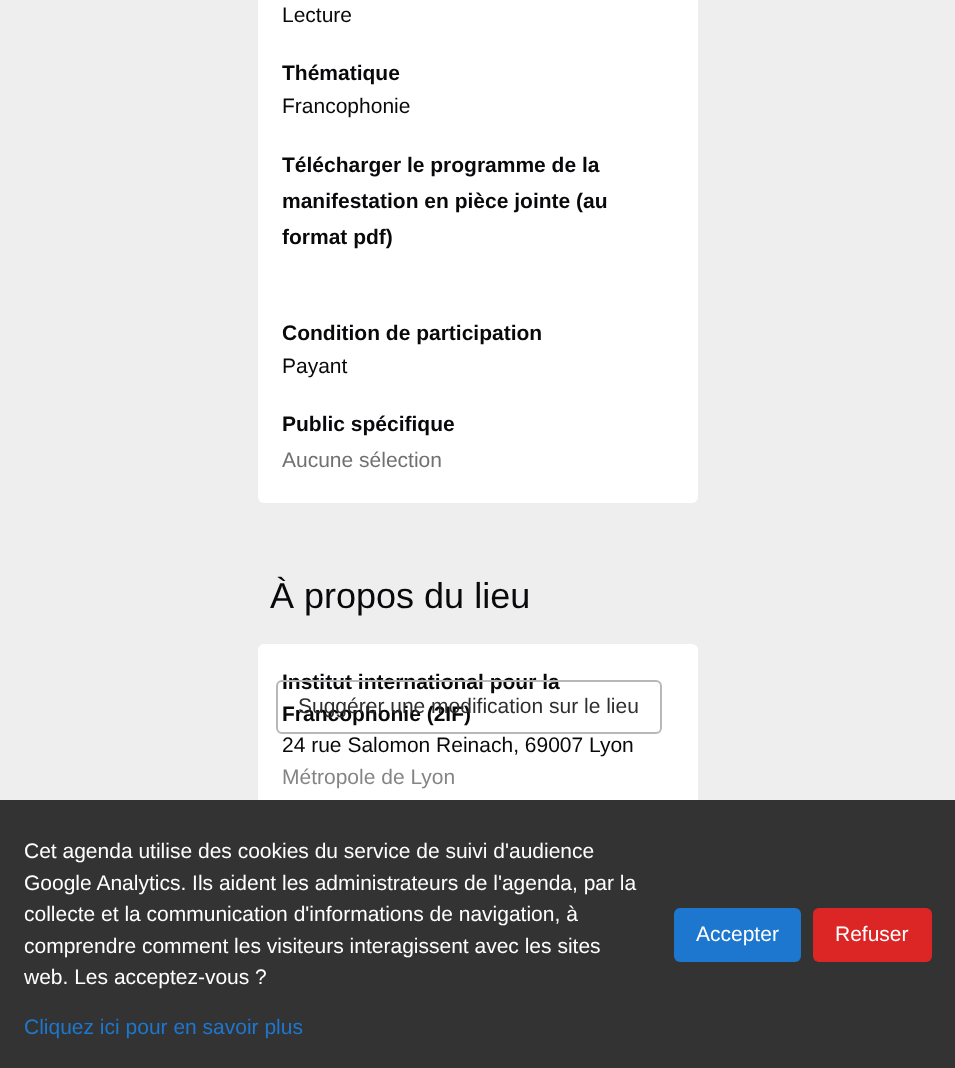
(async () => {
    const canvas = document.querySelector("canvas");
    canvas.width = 955;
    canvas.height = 1068;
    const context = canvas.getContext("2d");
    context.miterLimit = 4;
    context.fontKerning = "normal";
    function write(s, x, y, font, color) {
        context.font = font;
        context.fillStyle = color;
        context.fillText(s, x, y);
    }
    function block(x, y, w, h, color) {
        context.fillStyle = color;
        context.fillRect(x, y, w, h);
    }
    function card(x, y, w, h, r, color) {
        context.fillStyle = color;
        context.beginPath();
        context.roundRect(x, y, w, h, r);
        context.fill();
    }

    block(0, 0, 955, 1068, "rgb(238, 238, 238)");
    card(258, -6, 440, 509, 6, "rgb(255, 255, 255)");
    write("Lecture", 282, 22, "21px Liberation Sans", "rgb(9, 9, 11)");
    write("Thématique", 282, 80, "bold 21px Liberation Sans", "rgb(9, 9, 11)");
    write("Francophonie", 282, 113, "21px Liberation Sans", "rgb(9, 9, 11)");
    write("Télécharger le programme de la", 282, 172, "bold 21px Liberation Sans", "rgb(9, 9, 11)");
    write("manifestation en pièce jointe (au", 282, 208, "bold 21px Liberation Sans", "rgb(9, 9, 11)");
    write("format pdf)", 282, 244, "bold 21px Liberation Sans", "rgb(9, 9, 11)");
    write("Condition de participation", 282, 340, "bold 21px Liberation Sans", "rgb(9, 9, 11)");
    write("Payant", 282, 373, "21px Liberation Sans", "rgb(9, 9, 11)");
    write("Public spécifique", 282, 431, "bold 21px Liberation Sans", "rgb(9, 9, 11)");
    write("Aucune sélection", 282, 467, "21px Liberation Sans", "rgb(112, 112, 112)");
    write("À propos du lieu", 270, 608, "36px Liberation Sans", "rgb(9, 9, 11)");
    card(258, 644, 440, 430, 6, "rgb(255, 255, 255)");
    write("Institut international pour la", 282, 689, "bold 21px Liberation Sans", "rgb(9, 9, 11)");
    write("Francophonie (2IF)", 282, 721, "bold 21px Liberation Sans", "rgb(9, 9, 11)");
    write("24 rue Salomon Reinach, 69007 Lyon", 282, 752, "21px Liberation Sans", "rgb(9, 9, 11)");
    write("Métropole de Lyon", 282, 784, "21px Liberation Sans", "rgb(133, 133, 133)");
    context.beginPath();
    context.roundRect(277, 681, 384, 52, 5);
    context.strokeStyle = "rgb(184, 184, 184)";
    context.lineWidth = 2;
    context.stroke();
    write("Suggérer une modification sur le lieu", 298, 713, "21px Liberation Sans", "rgb(46, 46, 46)");
    block(0, 800, 955, 268, "rgb(51, 51, 51)");
    write("Cet agenda utilise des cookies du service de suivi d'audience", 24, 858, "21px Liberation Sans", "rgb(255, 255, 255)");
    write("Google Analytics. Ils aident les administrateurs de l'agenda, par la", 24, 890, "21px Liberation Sans", "rgb(255, 255, 255)");
    write("collecte et la communication d'informations de navigation, à", 24, 921, "21px Liberation Sans", "rgb(255, 255, 255)");
    write("comprendre comment les visiteurs interagissent avec les sites", 24, 953, "21px Liberation Sans", "rgb(255, 255, 255)");
    write("web. Les acceptez-vous ?", 24, 984, "21px Liberation Sans", "rgb(255, 255, 255)");
    write("Cliquez ici pour en savoir plus", 24, 1034, "21px Liberation Sans", "rgb(29, 119, 206)");
    card(674, 908, 127, 54, 6, "rgb(29, 119, 206)");
    write("Accepter", 696, 941, "21px Liberation Sans", "rgb(255, 255, 255)");
    card(813, 908, 119, 54, 6, "rgb(220, 38, 38)");
    write("Refuser", 835, 941, "21px Liberation Sans", "rgb(255, 255, 255)");
})();
